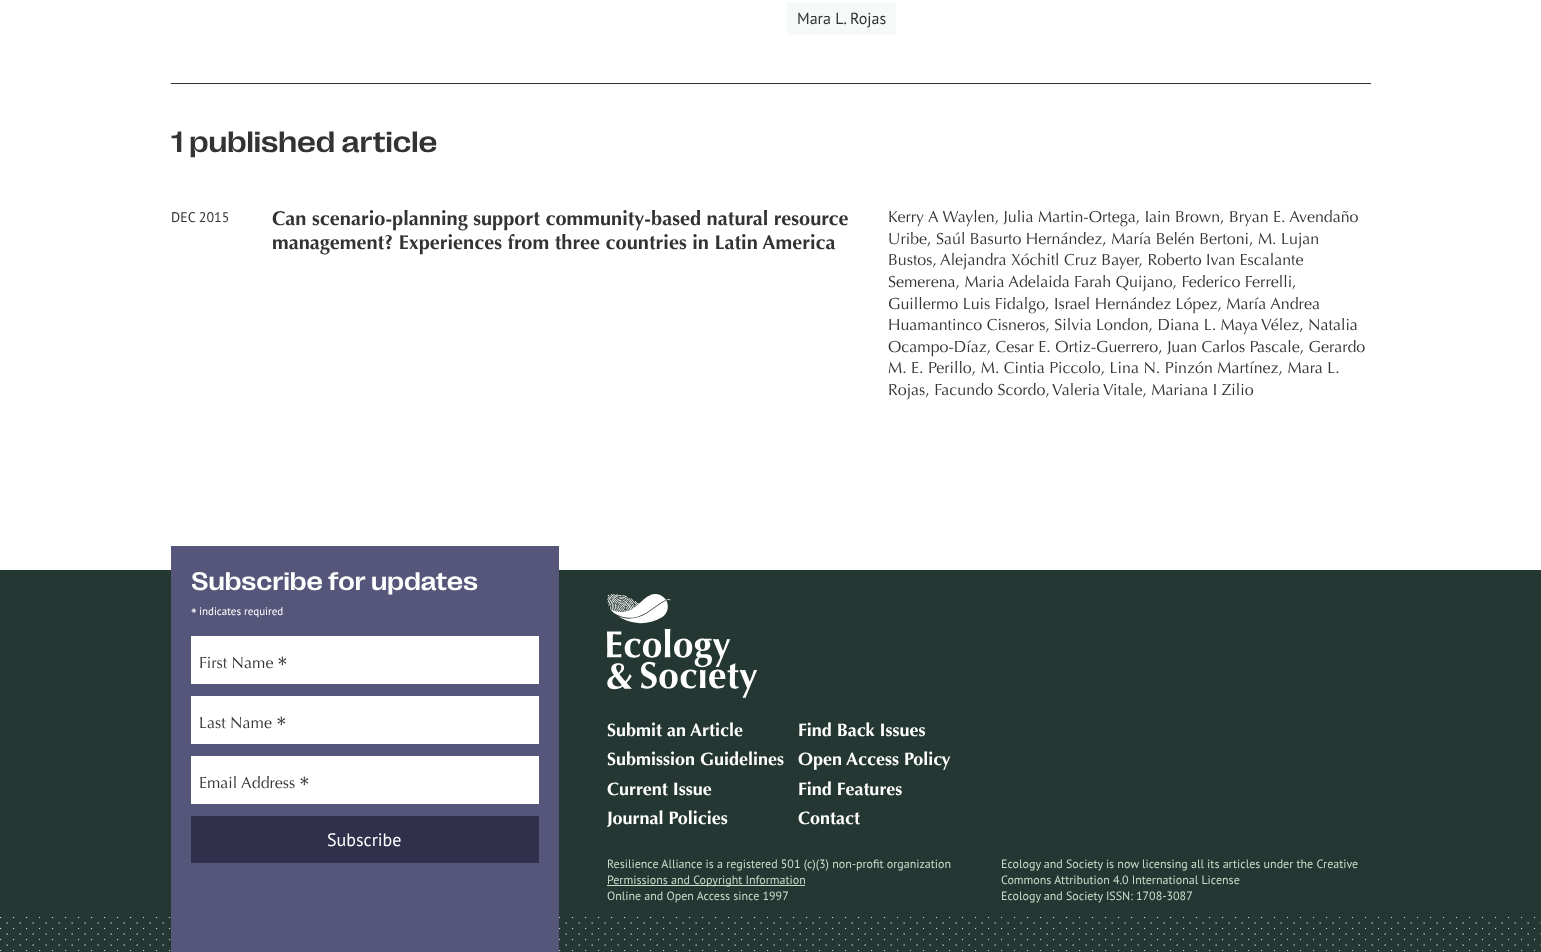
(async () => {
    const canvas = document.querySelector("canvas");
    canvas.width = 1541;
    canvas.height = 952;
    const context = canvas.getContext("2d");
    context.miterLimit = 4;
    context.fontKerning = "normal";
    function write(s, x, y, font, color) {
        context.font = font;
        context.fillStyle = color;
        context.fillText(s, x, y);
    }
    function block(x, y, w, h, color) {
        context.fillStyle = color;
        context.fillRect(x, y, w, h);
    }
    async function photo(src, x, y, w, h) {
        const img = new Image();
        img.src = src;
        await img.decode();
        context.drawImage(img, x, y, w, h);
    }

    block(0, 0, 1541, 952, "rgb(255, 255, 255)");
    block(787, 2, 109, 33, "rgb(245, 249, 248)");
    write("Mara L. Rojas", 797, 24, "16px PT Sans", "rgb(51, 51, 51)");
    block(171, 83, 1200, 1, "rgb(51, 51, 51)");
    write("1 published article", 171, 152, "500 30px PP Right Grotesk", "rgb(51, 51, 51)");
    write("DEC 2015", 171, 222, "14px PT Sans", "rgb(51, 51, 51)");
    write("Can scenario-planning support community-based natural resource", 272, 225, "bold 20px Optima", "rgb(51, 51, 51)");
    write("management? Experiences from three countries in Latin America", 272, 249, "bold 20px Optima", "rgb(51, 51, 51)");
    write("Kerry A Waylen, Julia Martin-Ortega, Iain Brown, Bryan E. Avendaño", 888, 222, "16px Optima", "rgb(51, 51, 51)");
    write("Uribe, Saúl Basurto Hernández, María Belén Bertoni, M. Lujan", 888, 244, "16px Optima", "rgb(51, 51, 51)");
    write("Bustos,", 888, 265, "16px Optima", "rgb(51, 51, 51)");
    write("Alejandra Xóchitl Cruz Bayer, Roberto Ivan Escalante", 940, 265, "16px Optima", "rgb(51, 51, 51)");
    write("Semerena, Maria Adelaida Farah Quijano, Federico Ferrelli,", 888, 287, "16px Optima", "rgb(51, 51, 51)");
    write("Guillermo Luis Fidalgo, Israel Hernández López, María Andrea", 888, 309, "16px Optima", "rgb(51, 51, 51)");
    write("Huamantinco Cisneros, Silvia London, Diana L. Maya Vélez, Natalia", 888, 330, "16px Optima", "rgb(51, 51, 51)");
    write("Ocampo-Díaz, Cesar E. Ortiz-Guerrero, Juan Carlos Pascale, Gerardo", 888, 352, "16px Optima", "rgb(51, 51, 51)");
    write("M. E. Perillo, M. Cintia Piccolo, Lina N. Pinzón Martínez, Mara L.", 888, 373, "16px Optima", "rgb(51, 51, 51)");
    write("Rojas, Facundo Scordo,", 888, 395, "16px Optima", "rgb(51, 51, 51)");
    write("Valeria Vitale, Mariana I Zilio", 1052, 395, "16px Optima", "rgb(51, 51, 51)");
    block(0, 570, 1541, 382, "rgb(37, 55, 51)");
    await photo("media/2.png", 0, 917, 1541, 35);
    block(171, 546, 388, 406, "rgb(85, 86, 122)");
    write("Subscribe for updates", 191, 590, "500 26px PP Right Grotesk", "rgb(255, 255, 255)");
    write("*", 191, 620, "16px PT Sans", "rgb(255, 255, 255)");
    write("indicates required", 199, 615, "11px PT Sans", "rgb(255, 255, 255)");
    block(191, 636, 348, 48, "rgb(255, 255, 255)");
    write("First Name", 199, 668, "16px Optima", "rgb(51, 51, 51)");
    write("*", 277, 673, "24px Optima", "rgb(51, 51, 51)");
    block(191, 696, 348, 48, "rgb(255, 255, 255)");
    write("Last Name", 199, 728, "16px Optima", "rgb(51, 51, 51)");
    write("*", 276, 733, "24px Optima", "rgb(51, 51, 51)");
    block(191, 756, 348, 48, "rgb(255, 255, 255)");
    write("Email Address", 199, 788, "16px Optima", "rgb(51, 51, 51)");
    write("*", 299, 793, "24px Optima", "rgb(51, 51, 51)");
    block(191, 816, 348, 47, "rgb(48, 48, 76)");
    write("Subscribe", 327, 846, "18px PT Sans", "rgb(255, 255, 255)");
    await photo("media/1.png", 607, 594, 150, 104);
    write("Submit an Article", 607, 736, "bold 18px Optima", "rgb(255, 255, 255)");
    write("Find Back Issues", 798, 736, "bold 18px Optima", "rgb(255, 255, 255)");
    write("Submission Guidelines", 607, 765, "bold 18px Optima", "rgb(255, 255, 255)");
    write("Open Access Policy", 798, 765, "bold 18px Optima", "rgb(255, 255, 255)");
    write("Current Issue", 607, 795, "bold 18px Optima", "rgb(255, 255, 255)");
    write("Find Features", 798, 795, "bold 18px Optima", "rgb(255, 255, 255)");
    write("Journal Policies", 607, 824, "bold 18px Optima", "rgb(255, 255, 255)");
    write("Contact", 798, 824, "bold 18px Optima", "rgb(255, 255, 255)");
    write("Resilience Alliance is a registered 501 (c)(3) non-profit organization", 607, 868, "12px PT Sans", "rgb(201, 222, 202)");
    write("Ecology and Society is now licensing all its articles under the Creative", 1001, 868, "12px PT Sans", "rgb(201, 222, 202)");
    write("Commons Attribution 4.0 International License", 1001, 884, "12px PT Sans", "rgb(201, 222, 202)");
    block(607, 885, 198, 1, "rgb(201, 222, 202)");
    write("Permissions and Copyright Information", 607, 884, "12px PT Sans", "rgb(201, 222, 202)");
    write("Online and Open Access since 1997", 607, 900, "12px PT Sans", "rgb(201, 222, 202)");
    write("Ecology and Society ISSN: 1708-3087", 1001, 900, "12px PT Sans", "rgb(201, 222, 202)");
})();
